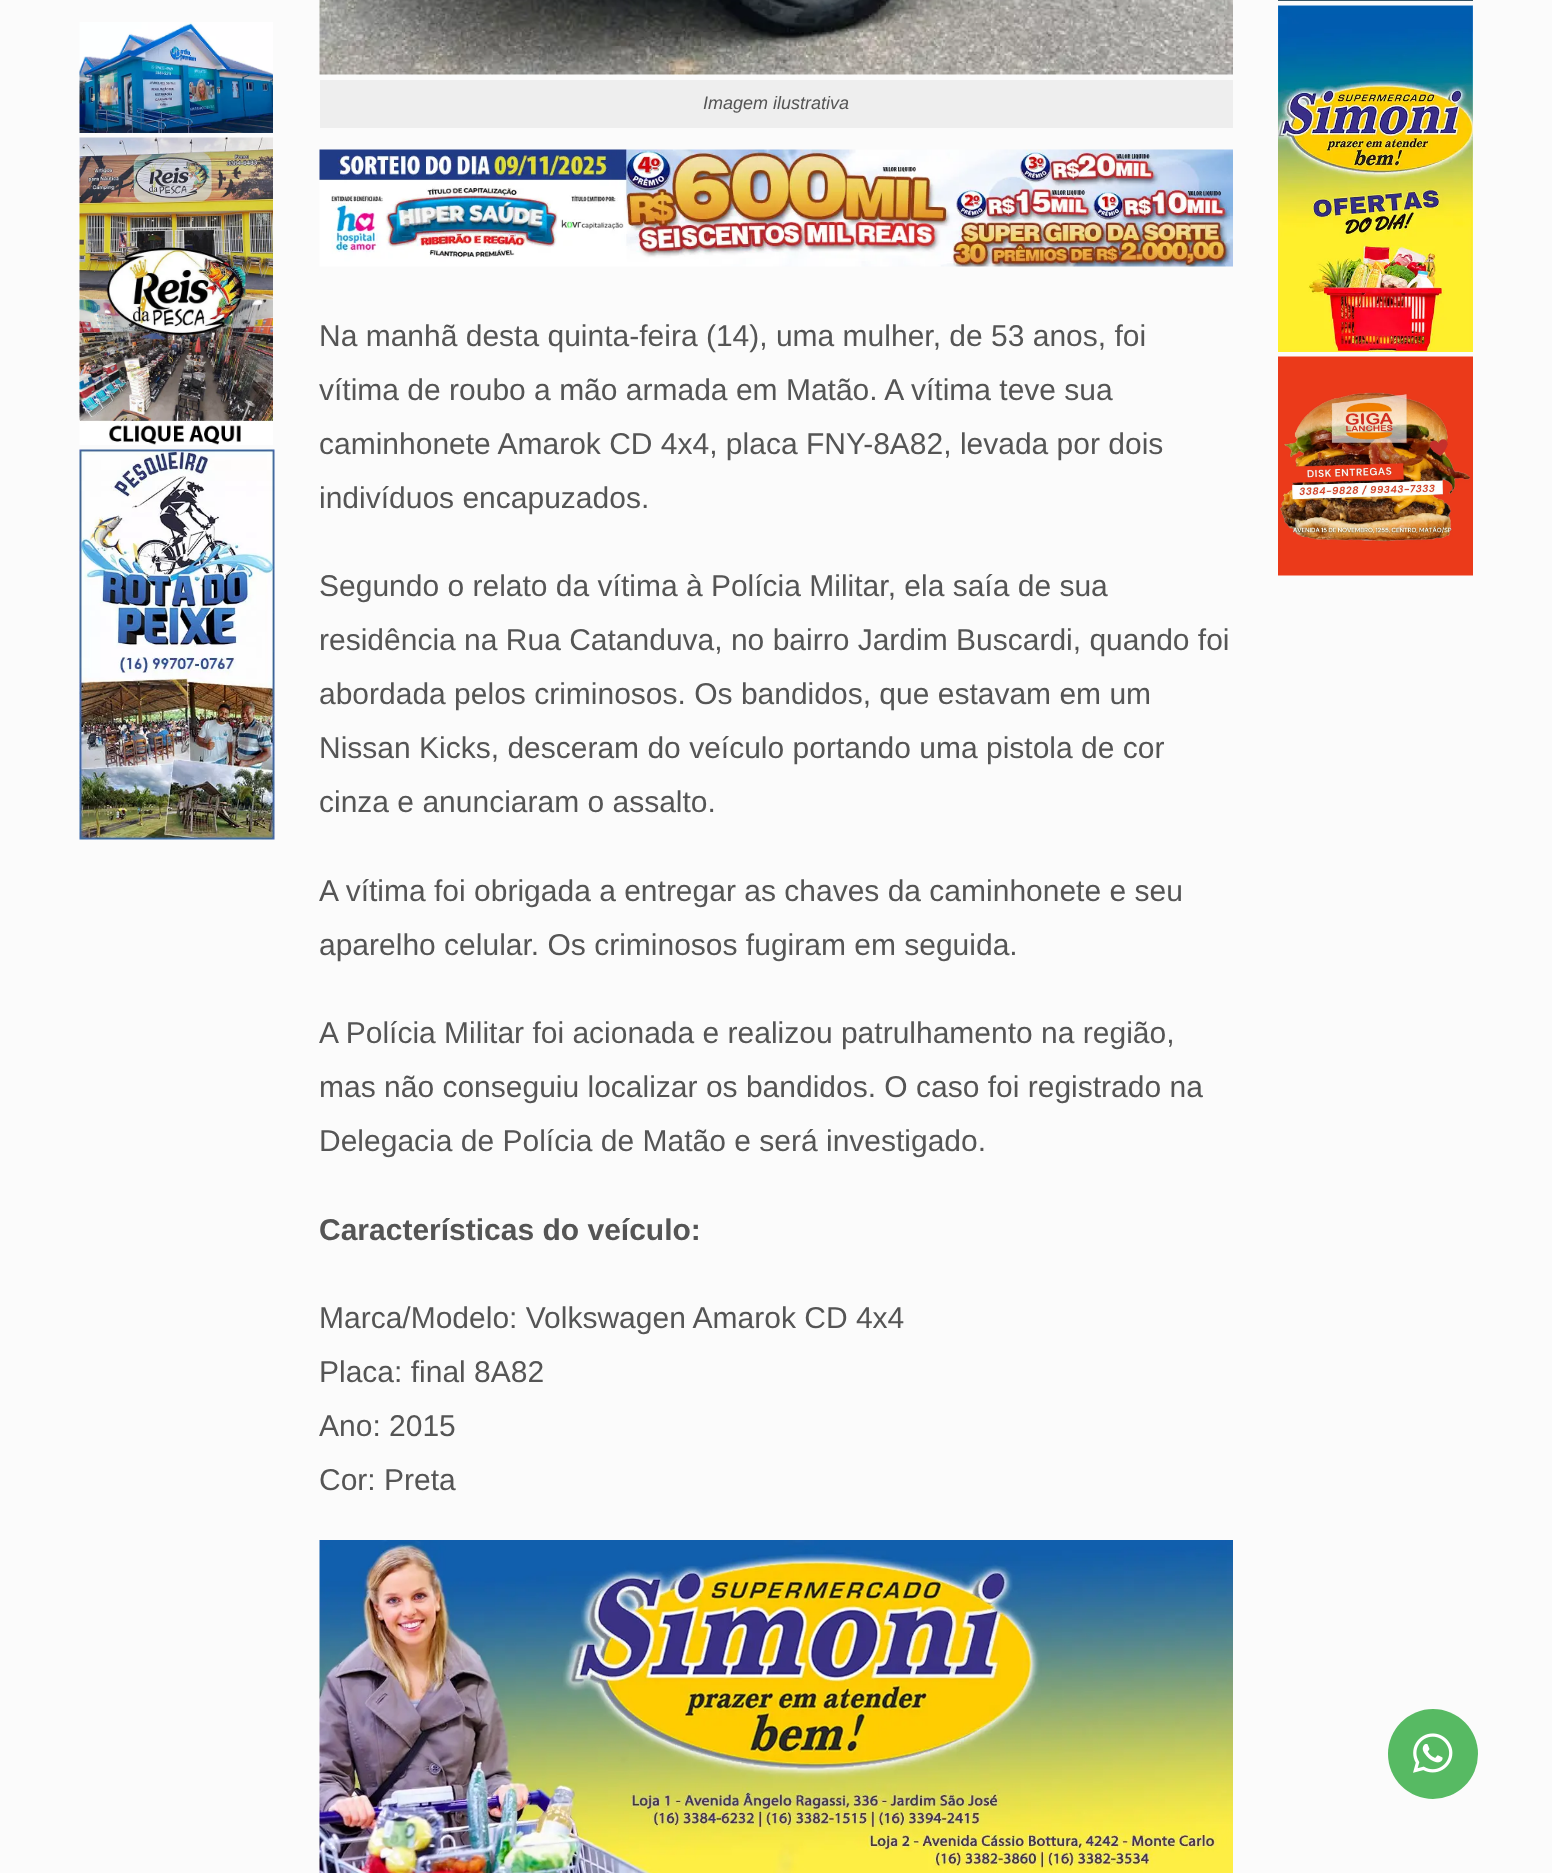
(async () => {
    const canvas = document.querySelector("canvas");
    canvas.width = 1552;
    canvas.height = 1873;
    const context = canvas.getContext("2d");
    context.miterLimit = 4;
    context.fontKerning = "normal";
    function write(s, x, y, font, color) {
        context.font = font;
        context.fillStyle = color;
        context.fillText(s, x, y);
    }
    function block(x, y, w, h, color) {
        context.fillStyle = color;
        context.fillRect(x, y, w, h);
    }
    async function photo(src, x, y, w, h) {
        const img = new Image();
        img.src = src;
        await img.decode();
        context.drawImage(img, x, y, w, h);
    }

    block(0, 0, 1552, 1873, "rgb(251, 251, 251)");
    await photo("media/1.png", 79, 22, 194, 111);
    await photo("media/2.png", 79, 137, 194, 308);
    await photo("media/3.png", 79, 449, 196, 391);
    await photo("media/4.png", 319, 0, 914, 75);
    block(320, 80, 913, 48, "rgb(238, 238, 238)");
    write("Imagem ilustrativa", 703, 109, "italic 18px Liberation Sans", "rgb(85, 85, 85)");
    await photo("media/5.png", 319, 149, 914, 118);
    write("Na manhã desta quinta-feira (14), uma mulher, de 53 anos, foi", 319, 346, "30px Liberation Sans", "rgb(85, 85, 85)");
    write("vítima de roubo a mão armada em Matão. A vítima teve sua", 319, 400, "30px Liberation Sans", "rgb(85, 85, 85)");
    write("caminhonete Amarok CD 4x4, placa FNY-8A82, levada por dois", 319, 454, "30px Liberation Sans", "rgb(85, 85, 85)");
    write("indivíduos encapuzados.", 319, 508, "30px Liberation Sans", "rgb(85, 85, 85)");
    write("Segundo o relato da vítima à Polícia Militar, ela saía de sua", 319, 596, "30px Liberation Sans", "rgb(85, 85, 85)");
    write("residência na Rua Catanduva, no bairro Jardim Buscardi, quando foi", 319, 650, "30px Liberation Sans", "rgb(85, 85, 85)");
    write("abordada pelos criminosos. Os bandidos, que estavam em um", 319, 704, "30px Liberation Sans", "rgb(85, 85, 85)");
    write("Nissan Kicks, desceram do veículo portando uma pistola de cor", 319, 758, "30px Liberation Sans", "rgb(85, 85, 85)");
    write("cinza e anunciaram o assalto.", 319, 812, "30px Liberation Sans", "rgb(85, 85, 85)");
    write("A vítima foi obrigada a entregar as chaves da caminhonete e seu", 319, 901, "30px Liberation Sans", "rgb(85, 85, 85)");
    write("aparelho celular. Os criminosos fugiram em seguida.", 319, 955, "30px Liberation Sans", "rgb(85, 85, 85)");
    write("A Polícia Militar foi acionada e realizou patrulhamento na região,", 319, 1043, "30px Liberation Sans", "rgb(85, 85, 85)");
    write("mas não conseguiu localizar os bandidos. O caso foi registrado na", 319, 1097, "30px Liberation Sans", "rgb(85, 85, 85)");
    write("Delegacia de Polícia de Matão e será investigado.", 319, 1151, "30px Liberation Sans", "rgb(85, 85, 85)");
    write("Características do veículo:", 319, 1240, "bold 30px Liberation Sans", "rgb(85, 85, 85)");
    write("Marca/Modelo: Volkswagen Amarok CD 4x4", 319, 1328, "30px Liberation Sans", "rgb(85, 85, 85)");
    write("Placa: final 8A82", 319, 1382, "30px Liberation Sans", "rgb(85, 85, 85)");
    write("Ano: 2015", 319, 1436, "30px Liberation Sans", "rgb(85, 85, 85)");
    write("Cor: Preta", 319, 1490, "30px Liberation Sans", "rgb(85, 85, 85)");
    await photo("media/6.png", 319, 1540, 914, 333);
    await photo("media/7.png", 1278, 0, 195, 1);
    await photo("media/8.png", 1278, 5, 195, 347);
    await photo("media/9.png", 1278, 356, 195, 220);
    context.fillStyle = "rgb(87, 186, 99)";
    context.beginPath();
    context.arc(1433, 1754, 45, 0, Math.PI * 2);
    context.fill();
    await photo("media/10.png", 1413, 1733, 40, 40);
})();
